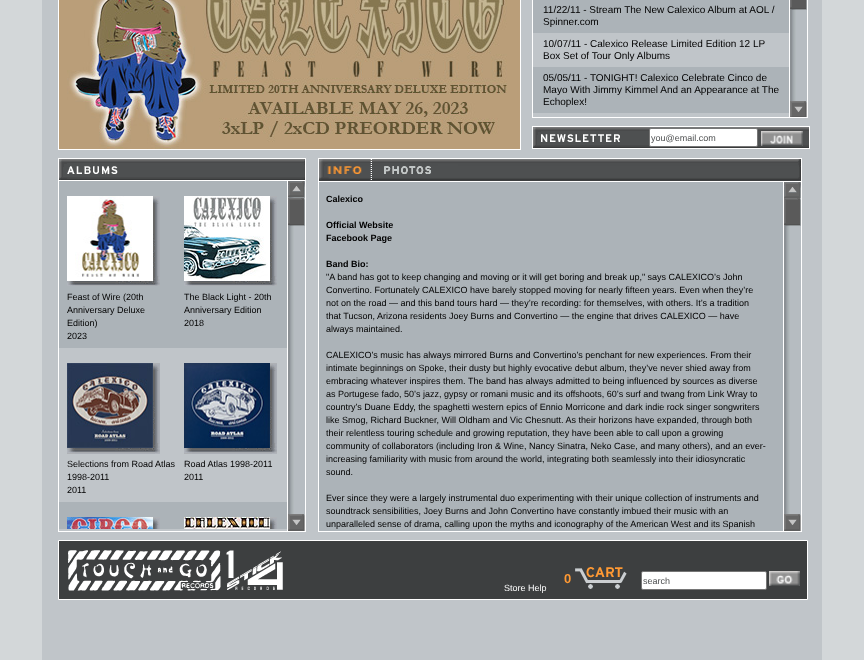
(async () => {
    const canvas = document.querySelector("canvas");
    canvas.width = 864;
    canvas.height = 660;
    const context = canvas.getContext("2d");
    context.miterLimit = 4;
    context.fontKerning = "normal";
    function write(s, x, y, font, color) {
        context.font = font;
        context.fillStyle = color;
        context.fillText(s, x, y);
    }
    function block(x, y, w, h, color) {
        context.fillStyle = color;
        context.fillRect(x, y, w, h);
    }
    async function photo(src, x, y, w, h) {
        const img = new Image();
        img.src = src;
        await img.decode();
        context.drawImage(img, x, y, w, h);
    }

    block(0, 0, 864, 660, "rgb(211, 215, 217)");
    block(42, 0, 780, 660, "rgb(192, 197, 201)");
    await photo("media/1.png", 59, 0, 461, 149);
    context.strokeStyle = "rgb(255, 255, 255)";
    context.strokeRect(58.5, -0.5, 462, 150);
    block(533, 0, 256, 113, "rgb(172, 179, 184)");
    context.strokeRect(532.5, -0.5, 275, 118);
    block(789, 0, 1, 117, "rgb(255, 255, 255)");
    await photo("media/2.png", 790, 10, 17, 91);
    write("11/22/11 - Stream The New Calexico Album at AOL /", 543, 13, "10px Liberation Sans", "rgb(0, 0, 0)");
    write("Spinner.com", 543, 25, "10px Liberation Sans", "rgb(0, 0, 0)");
    block(533, 33, 256, 34, "rgb(192, 197, 201)");
    write("10/07/11 - Calexico Release Limited Edition 12 LP", 543, 47, "10px Liberation Sans", "rgb(0, 0, 0)");
    write("Box Set of Tour Only Albums", 543, 59, "10px Liberation Sans", "rgb(0, 0, 0)");
    write("05/05/11 - TONIGHT! Calexico Celebrate Cinco de", 543, 81, "10px Liberation Sans", "rgb(0, 0, 0)");
    write("Mayo With Jimmy Kimmel And an Appearance at The", 543, 93, "10px Liberation Sans", "rgb(0, 0, 0)");
    write("Echoplex!", 543, 105, "10px Liberation Sans", "rgb(0, 0, 0)");
    await photo("media/3.png", 790, 0, 17, 10);
    await photo("media/4.png", 790, 101, 17, 16);
    context.strokeRect(532.5, 126.5, 277, 22);
    await photo("media/5.png", 533, 127, 276, 21);
    context.fillStyle = "rgb(255, 255, 255)";
    context.beginPath();
    context.roundRect(649.5, 128.5, 108, 18, 1.5);
    context.fill();
    context.strokeStyle = "rgb(118, 118, 118)";
    context.stroke();
    write("you@email.com", 651, 141, "9px Liberation Sans", "rgb(78, 80, 81)");
    await photo("media/6.png", 761, 131, 42, 15);
    context.strokeStyle = "rgb(255, 255, 255)";
    context.strokeRect(58.5, 158.5, 247, 373);
    block(59, 180, 246, 1, "rgb(255, 255, 255)");
    await photo("media/7.png", 59, 159, 246, 21);
    block(287, 181, 1, 350, "rgb(255, 255, 255)");
    await photo("media/8.png", 288, 181, 17, 17);
    await photo("media/9.png", 288, 198, 17, 28);
    block(59, 181, 228, 167, "rgb(172, 179, 184)");
    await photo("media/10.png", 67, 196, 93, 90);
    await photo("media/11.png", 75, 196, 65, 81);
    write("Feast of Wire (20th", 67, 300, "9px Liberation Sans", "rgb(0, 0, 0)");
    write("Anniversary Deluxe", 67, 313, "9px Liberation Sans", "rgb(0, 0, 0)");
    write("Edition)", 67, 326, "9px Liberation Sans", "rgb(0, 0, 0)");
    write("2023", 67, 339, "9px Liberation Sans", "rgb(0, 0, 0)");
    await photo("media/10.png", 184, 196, 93, 90);
    await photo("media/12.png", 184, 196, 84, 85);
    write("The Black Light - 20th", 184, 300, "9px Liberation Sans", "rgb(0, 0, 0)");
    write("Anniversary Edition", 184, 313, "9px Liberation Sans", "rgb(0, 0, 0)");
    write("2018", 184, 326, "9px Liberation Sans", "rgb(0, 0, 0)");
    await photo("media/13.png", 67, 363, 93, 91);
    await photo("media/14.png", 67, 363, 86, 85);
    write("Selections from Road Atlas", 67, 467, "9px Liberation Sans", "rgb(0, 0, 0)");
    write("1998-2011", 67, 480, "9px Liberation Sans", "rgb(0, 0, 0)");
    write("2011", 67, 493, "9px Liberation Sans", "rgb(0, 0, 0)");
    await photo("media/13.png", 184, 363, 93, 91);
    await photo("media/15.png", 184, 363, 86, 85);
    write("Road Atlas 1998-2011", 184, 467, "9px Liberation Sans", "rgb(0, 0, 0)");
    write("2011", 184, 480, "9px Liberation Sans", "rgb(0, 0, 0)");
    block(59, 502, 228, 27, "rgb(172, 179, 184)");
    await photo("media/16.png", 153, 517, 7, 12);
    await photo("media/17.png", 67, 517, 86, 12);
    await photo("media/16.png", 270, 517, 7, 12);
    await photo("media/18.png", 184, 517, 86, 12);
    await photo("media/19.png", 288, 226, 17, 288);
    await photo("media/20.png", 288, 514, 17, 17);
    block(319, 182, 464, 349, "rgb(172, 179, 184)");
    context.strokeRect(318.5, 158.5, 483, 373);
    block(319, 180, 482, 1, "rgb(61, 63, 64)");
    await photo("media/21.png", 319, 159, 482, 21);
    block(319, 181, 482, 1, "rgb(255, 255, 255)");
    await photo("media/22.png", 320, 159, 52, 21);
    await photo("media/23.png", 384, 166, 47, 8);
    write("Calexico", 326, 202, "bold 9px Liberation Sans", "rgb(0, 0, 0)");
    write("Official Website", 326, 228, "bold 9px Liberation Sans", "rgb(0, 0, 0)");
    write("Facebook Page", 326, 241, "bold 9px Liberation Sans", "rgb(0, 0, 0)");
    write("Band Bio:", 326, 267, "bold 9px Liberation Sans", "rgb(0, 0, 0)");
    write("\"A band has got to keep changing and moving or it will get boring and break up,\" says CALEXICO’s John", 326, 280, "9px Liberation Sans", "rgb(0, 0, 0)");
    write("Convertino. Fortunately CALEXICO have barely stopped moving for nearly fifteen years. Even when they’re", 326, 293, "9px Liberation Sans", "rgb(0, 0, 0)");
    write("not on the road — and this band tours hard — they’re recording: for themselves, with others. It’s a tradition", 326, 306, "9px Liberation Sans", "rgb(0, 0, 0)");
    write("that Tucson, Arizona residents Joey Burns and Convertino — the engine that drives CALEXICO — have", 326, 319, "9px Liberation Sans", "rgb(0, 0, 0)");
    write("always maintained.", 326, 332, "9px Liberation Sans", "rgb(0, 0, 0)");
    write("CALEXICO’s music has always mirrored Burns and Convertino’s penchant for new experiences. From their", 326, 358, "9px Liberation Sans", "rgb(0, 0, 0)");
    write("intimate beginnings on Spoke, their dusty but highly evocative debut album, they’ve never shied away from", 326, 371, "9px Liberation Sans", "rgb(0, 0, 0)");
    write("embracing whatever inspires them. The band has always admitted to being influenced by sources as diverse", 326, 384, "9px Liberation Sans", "rgb(0, 0, 0)");
    write("as Portugese fado, 50’s jazz, gypsy or romani music and its offshoots, 60’s surf and twang from Link Wray to", 326, 397, "9px Liberation Sans", "rgb(0, 0, 0)");
    write("country’s Duane Eddy, the spaghetti western epics of Ennio Morricone and dark indie rock singer songwriters", 326, 410, "9px Liberation Sans", "rgb(0, 0, 0)");
    write("like Smog, Richard Buckner, Will Oldham and Vic Chesnutt. As their horizons have expanded, through both", 326, 423, "9px Liberation Sans", "rgb(0, 0, 0)");
    write("their relentless touring schedule and growing reputation, they have been able to call upon a growing", 326, 436, "9px Liberation Sans", "rgb(0, 0, 0)");
    write("community of collaborators (including Iron & Wine, Nancy Sinatra, Neko Case, and many others), and an ever-", 326, 449, "9px Liberation Sans", "rgb(0, 0, 0)");
    write("increasing familiarity with music from around the world, integrating both seamlessly into their idiosyncratic", 326, 462, "9px Liberation Sans", "rgb(0, 0, 0)");
    write("sound.", 326, 475, "9px Liberation Sans", "rgb(0, 0, 0)");
    write("Ever since they were a largely instrumental duo experimenting with their unique collection of instruments and", 326, 501, "9px Liberation Sans", "rgb(0, 0, 0)");
    write("soundtrack sensibilities, Joey Burns and John Convertino have constantly imbued their music with an", 326, 514, "9px Liberation Sans", "rgb(0, 0, 0)");
    write("unparalleled sense of drama, calling upon the myths and iconography of the American West and its Spanish", 326, 527, "9px Liberation Sans", "rgb(0, 0, 0)");
    block(783, 182, 1, 349, "rgb(255, 255, 255)");
    await photo("media/24.png", 784, 182, 17, 16);
    await photo("media/9.png", 784, 198, 17, 28);
    await photo("media/19.png", 784, 226, 17, 288);
    await photo("media/20.png", 784, 514, 17, 17);
    context.fillStyle = "rgb(61, 63, 64)";
    context.beginPath();
    context.rect(58.5, 540.5, 749, 59);
    context.fill();
    context.stroke();
    await photo("media/25.png", 68, 550, 215, 41);
    await photo("media/26.png", 575, 567, 52, 22);
    write("0", 564, 583, "bold 13px Liberation Sans", "rgb(255, 153, 51)");
    context.fillStyle = "rgb(255, 255, 255)";
    context.beginPath();
    context.roundRect(641.5, 571.5, 125, 18, 1.5);
    context.fill();
    context.strokeStyle = "rgb(118, 118, 118)";
    context.stroke();
    write("search", 643, 584, "9px Liberation Sans", "rgb(78, 80, 81)");
    await photo("media/27.png", 769, 571, 31, 15);
    write("Store Help", 504, 591, "9px Liberation Sans", "rgb(255, 255, 255)");
})();
